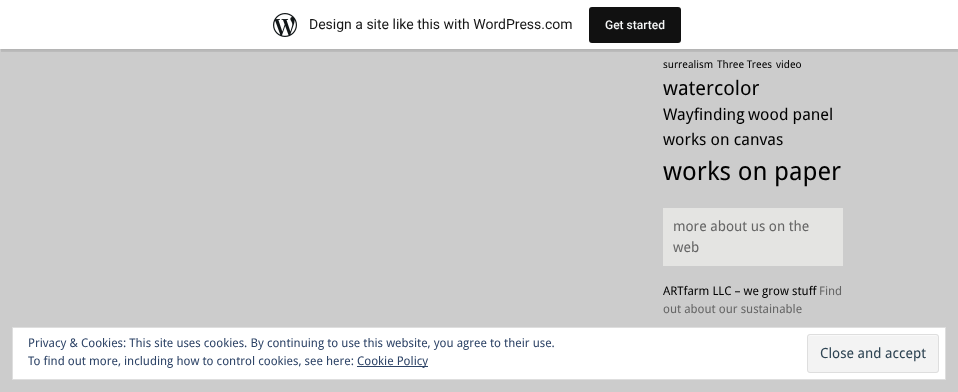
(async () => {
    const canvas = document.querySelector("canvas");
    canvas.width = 958;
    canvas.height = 392;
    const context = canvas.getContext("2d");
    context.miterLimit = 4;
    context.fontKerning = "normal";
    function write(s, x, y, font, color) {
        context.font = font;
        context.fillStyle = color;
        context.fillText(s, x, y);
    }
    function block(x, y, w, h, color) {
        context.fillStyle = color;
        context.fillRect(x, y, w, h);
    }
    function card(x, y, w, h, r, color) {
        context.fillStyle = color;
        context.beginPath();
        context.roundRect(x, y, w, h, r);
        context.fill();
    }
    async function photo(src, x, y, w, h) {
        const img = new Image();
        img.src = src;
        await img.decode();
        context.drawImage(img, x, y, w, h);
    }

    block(0, 0, 958, 392, "rgb(204, 204, 204)");
    context.fillStyle = "rgba(0, 0, 0, 0.05)";
    context.filter = "blur(1px)";
    context.beginPath();
    context.rect(0, 1, 958, 49);
    context.fill();
    context.filter = "none";
    context.fillStyle = "rgba(0, 0, 0, 0.08)";
    context.beginPath();
    context.moveTo(1, 49);
    context.lineTo(1, 52);
    context.lineTo(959, 52);
    context.lineTo(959, 3);
    context.lineTo(958, 3);
    context.lineTo(958, 49);
    context.closePath();
    context.fill();
    block(0, 0, 958, 49, "rgb(255, 255, 255)");
    await photo("media/1.png", 273, 13, 24, 24);
    write("Design a site like this with WordPress.com", 309, 29, "14px Roboto", "rgb(23, 23, 23)");
    card(589, 7, 92, 36, 3, "rgb(17, 17, 17)");
    write("Get started", 605, 29, "500 12px Roboto", "rgb(246, 247, 247)");
    write("surrealism", 663, 68, "10.5px Droid Sans", "rgb(0, 0, 0)");
    write("Three Trees", 717, 68, "10.5px Droid Sans", "rgb(0, 0, 0)");
    write("video", 776, 68, "10.5px Droid Sans", "rgb(0, 0, 0)");
    write("watercolor", 663, 95, "20px Droid Sans", "rgb(0, 0, 0)");
    write("Wayfinding", 663, 120, "16.25px Droid Sans", "rgb(0, 0, 0)");
    write("wood panel", 748, 120, "16.25px Droid Sans", "rgb(0, 0, 0)");
    write("works on canvas", 663, 145, "16.25px Droid Sans", "rgb(0, 0, 0)");
    write("works on paper", 663, 180, "25.5px Droid Sans", "rgb(0, 0, 0)");
    block(663, 208, 180, 58, "rgb(228, 228, 226)");
    write("more about us on the", 673, 231, "14px Droid Sans", "rgb(102, 102, 102)");
    write("web", 673, 252, "14px Droid Sans", "rgb(102, 102, 102)");
    write("ARTfarm LLC – we grow stuff", 663, 295, "12px Droid Sans", "rgb(0, 0, 0)");
    write("Find", 819, 295, "12px Droid Sans", "rgb(102, 102, 102)");
    write("out about our sustainable", 663, 313, "12px Droid Sans", "rgb(102, 102, 102)");
    context.fillStyle = "rgb(255, 255, 255)";
    context.beginPath();
    context.rect(12.5, 327.5, 933, 52);
    context.fill();
    context.strokeStyle = "rgb(222, 222, 222)";
    context.stroke();
    write("Privacy & Cookies: This site uses cookies. By continuing to use this website, you agree to their use.", 28, 347, "12px Droid Sans", "rgb(46, 68, 103)");
    write("To find out more, including how to control cookies, see here:", 28, 365, "12px Droid Sans", "rgb(46, 68, 103)");
    block(357, 366, 71, 1, "rgb(46, 68, 103)");
    write("Cookie Policy", 357, 365, "12px Droid Sans", "rgb(46, 68, 103)");
    card(807, 334, 132, 39, 3, "rgb(243, 243, 243)");
    context.fillStyle = "rgb(249, 249, 249)";
    context.beginPath();
    context.moveTo(810, 336);
    context.lineTo(936, 336);
    context.bezierCurveTo(937, 336, 938, 337, 938, 338);
    context.bezierCurveTo(938, 337, 938, 335, 936, 335);
    context.lineTo(810, 335);
    context.bezierCurveTo(808, 335, 808, 337, 808, 338);
    context.bezierCurveTo(808, 337, 809, 336, 810, 336);
    context.closePath();
    context.fill();
    context.beginPath();
    context.roundRect(807.5, 334.5, 131, 38, 2.5);
    context.stroke();
    write("Close and accept", 820, 358, "14px Droid Sans", "rgb(46, 68, 83)");
})();
